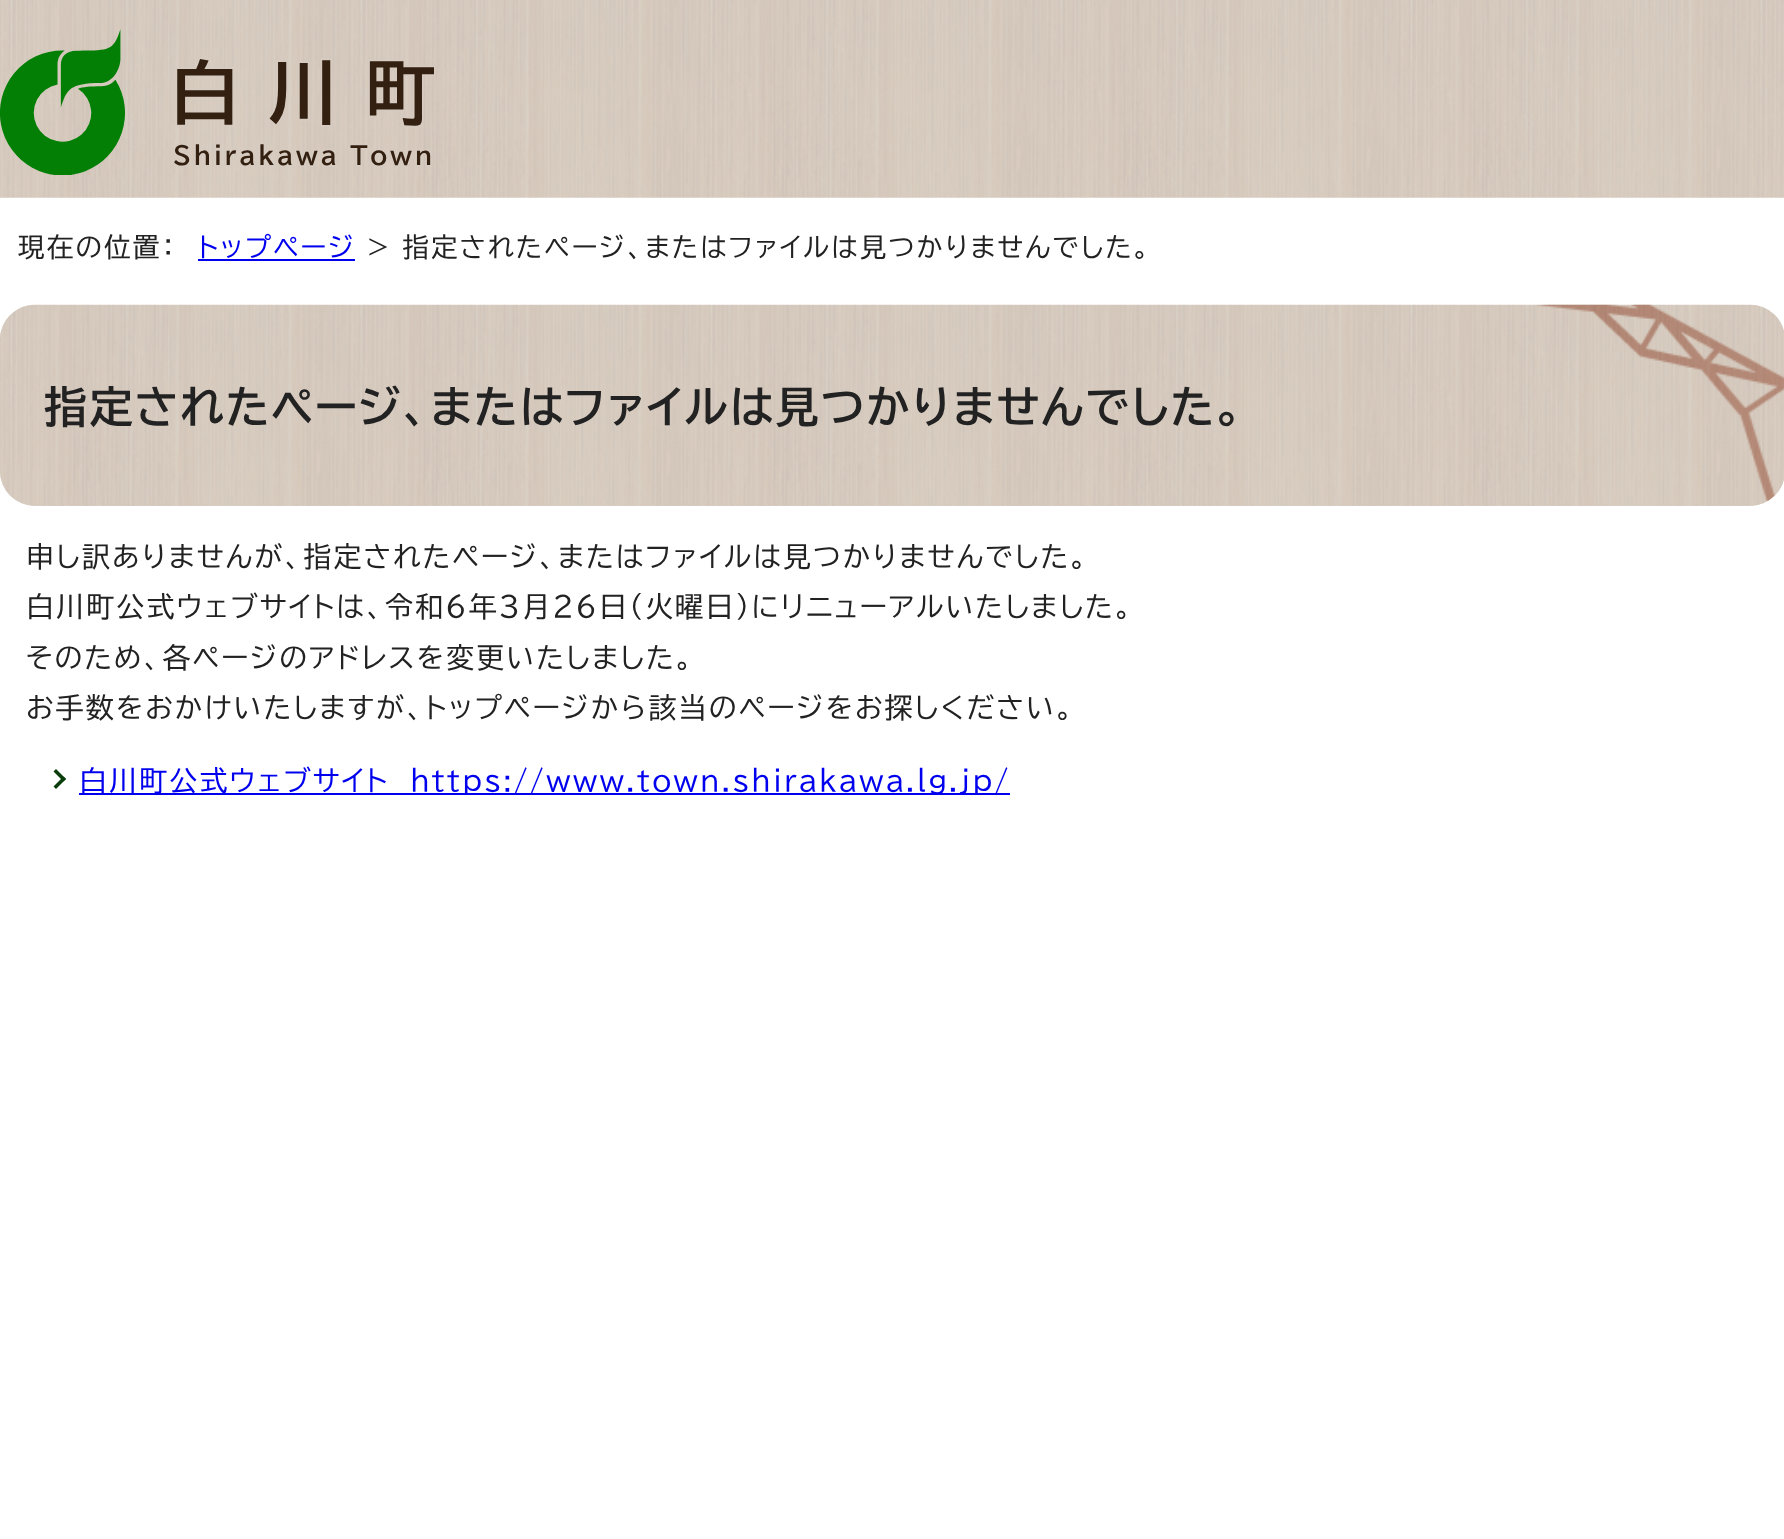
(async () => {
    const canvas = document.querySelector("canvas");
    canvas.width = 1784;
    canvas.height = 1539;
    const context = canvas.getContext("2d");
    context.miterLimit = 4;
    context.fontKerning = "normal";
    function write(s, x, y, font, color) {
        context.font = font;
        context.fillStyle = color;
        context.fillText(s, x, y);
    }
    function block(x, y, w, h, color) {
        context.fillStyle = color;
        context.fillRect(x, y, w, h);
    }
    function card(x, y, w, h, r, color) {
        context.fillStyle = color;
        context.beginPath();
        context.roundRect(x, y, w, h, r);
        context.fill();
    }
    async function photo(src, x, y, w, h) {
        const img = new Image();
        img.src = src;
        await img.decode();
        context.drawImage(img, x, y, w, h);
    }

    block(0, 0, 1784, 1539, "rgb(255, 255, 255)");
    await photo("media/1.png", 0, 0, 1784, 198);
    await photo("media/2.png", 0, 29, 435, 146);
    context.letterSpacing = "2.1px";
    write("現在の位置：", 18, 257, "26.6px BIZ UDPGothic", "rgb(34, 34, 34)");
    write("トップページ", 198, 257, "26.6px BIZ UDPGothic", "rgb(0, 0, 238)");
    block(198, 259, 157, 2, "rgb(0, 0, 238)");
    write("> 指定されたページ、またはファイルは見つかりませんでした。", 367, 257, "26.6px BIZ UDPGothic", "rgb(34, 34, 34)");
    card(0, 305, 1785, 201, 35, "rgb(216, 206, 195)");
    await photo("media/3.png", 0, 304, 1784, 202);
    write("指定されたページ、またはファイルは見つかりませんでした。", 44, 423, "bold 43.4px BIZ UDPGothic", "rgb(34, 34, 34)");
    write("申し訳ありませんが、指定されたページ、またはファイルは見つかりませんでした。", 26, 567, "28px BIZ UDPGothic", "rgb(34, 34, 34)");
    write("白川町公式ウェブサイトは、令和6年3月26日（火曜日）にリニューアルいたしました。", 26, 617, "28px BIZ UDPGothic", "rgb(34, 34, 34)");
    write("そのため、各ページのアドレスを変更いたしました。", 26, 668, "28px BIZ UDPGothic", "rgb(34, 34, 34)");
    write("お手数をおかけいたしますが、トップページから該当のページをお探しください。", 26, 718, "28px BIZ UDPGothic", "rgb(34, 34, 34)");
    context.fillStyle = "rgb(9, 61, 11)";
    context.beginPath();
    context.moveTo(56, 769);
    context.lineTo(66, 779);
    context.lineTo(63.5, 781.5);
    context.lineTo(53.5, 771.5);
    context.closePath();
    context.fill();
    context.beginPath();
    context.moveTo(63.5, 776.5);
    context.lineTo(66, 779);
    context.lineTo(56, 789);
    context.lineTo(53.5, 786.5);
    context.closePath();
    context.fill();
    block(79, 793, 931, 2, "rgb(0, 0, 238)");
    write("白川町公式ウェブサイト　https://www.town.shirakawa.lg.jp/", 79, 791, "28px BIZ UDPGothic", "rgb(0, 0, 238)");
})();
